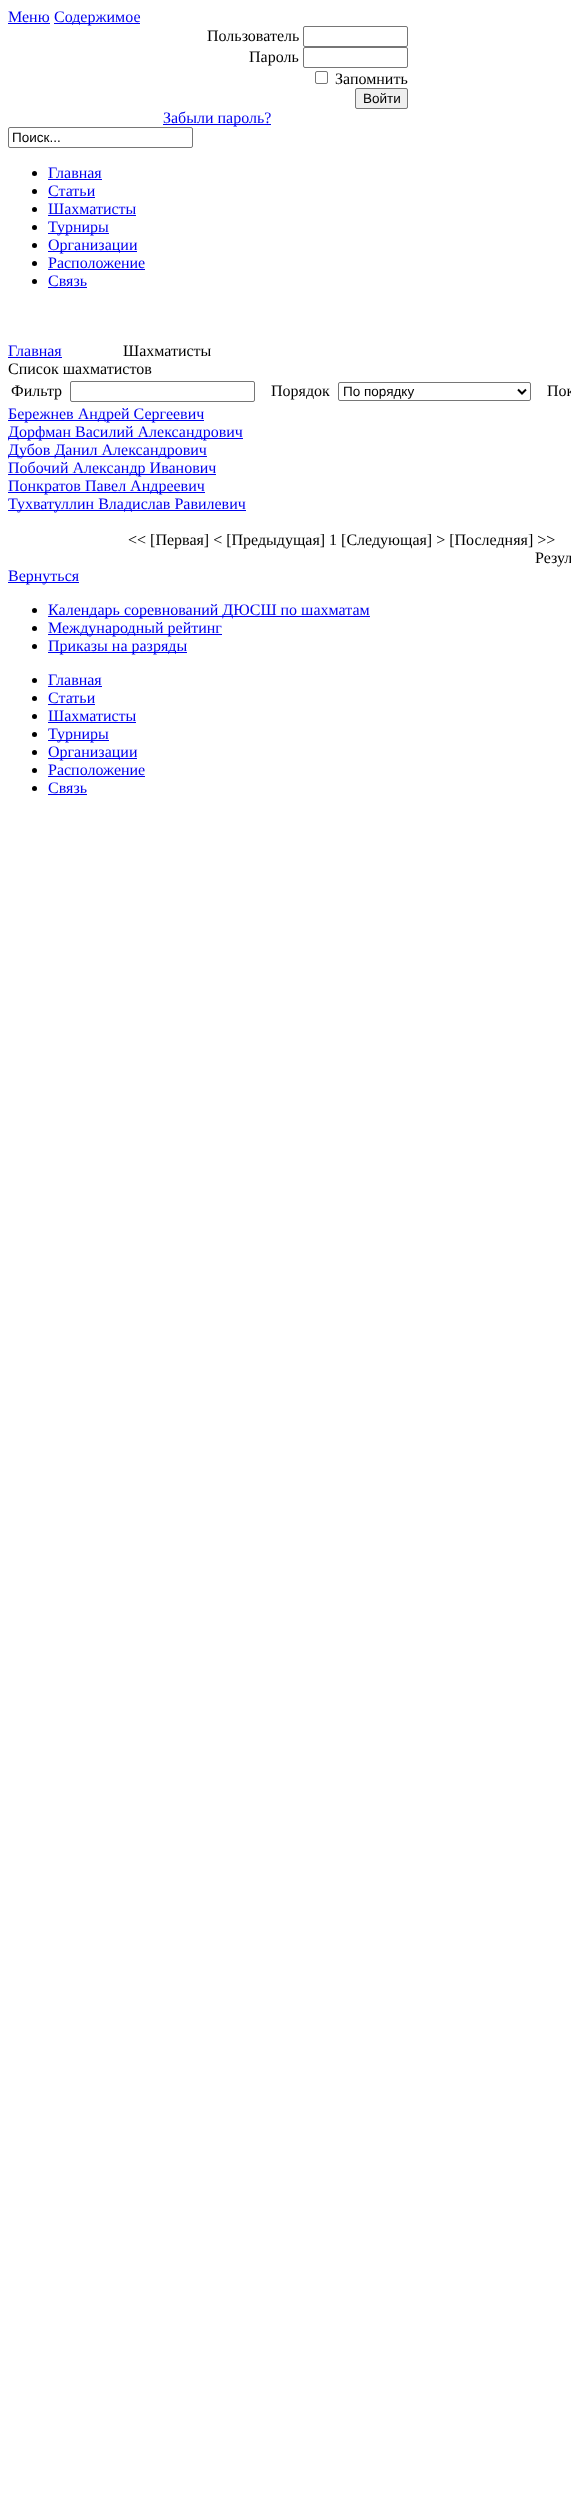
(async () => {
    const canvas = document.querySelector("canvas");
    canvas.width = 571;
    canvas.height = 2505;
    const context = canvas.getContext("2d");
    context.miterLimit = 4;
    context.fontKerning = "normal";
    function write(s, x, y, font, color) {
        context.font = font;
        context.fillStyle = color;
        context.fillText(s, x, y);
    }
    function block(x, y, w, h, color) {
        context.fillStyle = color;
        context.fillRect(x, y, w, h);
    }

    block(0, 0, 571, 2505, "rgb(255, 255, 255)");
    write("Меню", 8, 22, "16px Liberation Serif", "rgb(0, 0, 238)");
    block(8, 23, 42, 1, "rgb(0, 0, 238)");
    block(54, 23, 86, 1, "rgb(0, 0, 238)");
    write("Содержимое", 54, 22, "16px Liberation Serif", "rgb(0, 0, 238)");
    write("Пользователь", 207, 41, "16px Liberation Serif", "rgb(0, 0, 0)");
    context.beginPath();
    context.roundRect(303.5, 26.5, 104, 20, 1.5);
    context.strokeStyle = "rgb(118, 118, 118)";
    context.stroke();
    write("Пароль", 249, 62, "16px Liberation Serif", "rgb(0, 0, 0)");
    context.beginPath();
    context.roundRect(303.5, 47.5, 104, 20, 1.5);
    context.stroke();
    context.beginPath();
    context.roundRect(315.5, 71.5, 12, 12, 1.5);
    context.stroke();
    write("Запомнить", 335, 84, "16px Liberation Serif", "rgb(0, 0, 0)");
    context.fillStyle = "rgb(239, 239, 239)";
    context.beginPath();
    context.roundRect(355.5, 88.5, 52, 20, 1.5);
    context.fill();
    context.stroke();
    write("Войти", 363, 103, "13.5px Liberation Sans", "rgb(0, 0, 0)");
    block(163, 124, 108, 1, "rgb(0, 0, 238)");
    write("Забыли пароль?", 163, 123, "16px Liberation Serif", "rgb(0, 0, 238)");
    context.beginPath();
    context.roundRect(8.5, 127.5, 184, 20, 1.5);
    context.stroke();
    write("Поиск...", 12, 142, "13.5px Liberation Sans", "rgb(0, 0, 0)");
    context.beginPath();
    context.arc(34.5, 173.5, 2.5, 0, Math.PI * 2);
    context.fill();
    write("Главная", 48, 178, "16px Liberation Serif", "rgb(0, 0, 238)");
    block(48, 179, 54, 1, "rgb(0, 0, 238)");
    context.fillStyle = "rgb(0, 0, 0)";
    context.beginPath();
    context.arc(34.5, 191.5, 2.5, 0, Math.PI * 2);
    context.fill();
    write("Статьи", 48, 196, "16px Liberation Serif", "rgb(0, 0, 238)");
    block(48, 197, 47, 1, "rgb(0, 0, 238)");
    context.fillStyle = "rgb(0, 0, 0)";
    context.beginPath();
    context.arc(34.5, 209.5, 2.5, 0, Math.PI * 2);
    context.fill();
    write("Шахматисты", 48, 214, "16px Liberation Serif", "rgb(0, 0, 238)");
    block(48, 215, 88, 1, "rgb(0, 0, 238)");
    context.fillStyle = "rgb(0, 0, 0)";
    context.beginPath();
    context.arc(34.5, 227.5, 2.5, 0, Math.PI * 2);
    context.fill();
    block(48, 233, 61, 1, "rgb(0, 0, 238)");
    write("Турниры", 48, 232, "16px Liberation Serif", "rgb(0, 0, 238)");
    context.fillStyle = "rgb(0, 0, 0)";
    context.beginPath();
    context.arc(34.5, 245.5, 2.5, 0, Math.PI * 2);
    context.fill();
    block(48, 251, 89, 1, "rgb(0, 0, 238)");
    write("Организации", 48, 250, "16px Liberation Serif", "rgb(0, 0, 238)");
    context.fillStyle = "rgb(0, 0, 0)";
    context.beginPath();
    context.arc(34.5, 263.5, 2.5, 0, Math.PI * 2);
    context.fill();
    write("Расположение", 48, 268, "16px Liberation Serif", "rgb(0, 0, 238)");
    block(48, 269, 97, 1, "rgb(0, 0, 238)");
    context.fillStyle = "rgb(0, 0, 0)";
    context.beginPath();
    context.arc(34.5, 281.5, 2.5, 0, Math.PI * 2);
    context.fill();
    write("Связь", 48, 286, "16px Liberation Serif", "rgb(0, 0, 238)");
    block(48, 287, 39, 1, "rgb(0, 0, 238)");
    write("Главная", 8, 356, "16px Liberation Serif", "rgb(0, 0, 238)");
    block(8, 357, 54, 1, "rgb(0, 0, 238)");
    write("Шахматисты", 123, 356, "16px Liberation Serif", "rgb(0, 0, 0)");
    write("Список шахматистов", 8, 374, "16px Liberation Serif", "rgb(0, 0, 0)");
    write("Фильтр", 11, 396, "16px Liberation Serif", "rgb(0, 0, 0)");
    context.beginPath();
    context.roundRect(70.5, 381.5, 184, 20, 1.5);
    context.stroke();
    write("Порядок", 271, 396, "16px Liberation Serif", "rgb(0, 0, 0)");
    context.beginPath();
    context.roundRect(338.5, 382.5, 192, 18, 1.5);
    context.stroke();
    context.beginPath();
    context.moveTo(518, 389.5);
    context.lineTo(522, 393.5);
    context.lineTo(526, 389.5);
    context.strokeStyle = "rgb(0, 0, 0)";
    context.lineWidth = 2;
    context.stroke();
    write("По порядку", 343, 396, "13.5px Liberation Sans", "rgb(0, 0, 0)");
    write("Пок", 547, 396, "16px Liberation Serif", "rgb(0, 0, 0)");
    block(8, 420, 196, 1, "rgb(0, 0, 238)");
    write("Бережнев Андрей Сергеевич", 8, 419, "16px Liberation Serif", "rgb(0, 0, 238)");
    block(8, 438, 235, 1, "rgb(0, 0, 238)");
    write("Дорфман Василий Александрович", 8, 437, "16px Liberation Serif", "rgb(0, 0, 238)");
    block(8, 456, 199, 1, "rgb(0, 0, 238)");
    write("Дубов Данил Александрович", 8, 455, "16px Liberation Serif", "rgb(0, 0, 238)");
    block(8, 474, 208, 1, "rgb(0, 0, 238)");
    write("Побочий Александр Иванович", 8, 473, "16px Liberation Serif", "rgb(0, 0, 238)");
    block(8, 492, 197, 1, "rgb(0, 0, 238)");
    write("Понкратов Павел Андреевич", 8, 491, "16px Liberation Serif", "rgb(0, 0, 238)");
    block(8, 510, 238, 1, "rgb(0, 0, 238)");
    write("Тухватуллин Владислав Равилевич", 8, 509, "16px Liberation Serif", "rgb(0, 0, 238)");
    write("<< [Первая] < [Предыдущая] 1 [Следующая] > [Последняя] >>", 128, 545, "16px Liberation Serif", "rgb(0, 0, 0)");
    write("Резул", 535, 563, "16px Liberation Serif", "rgb(0, 0, 0)");
    block(8, 582, 71, 1, "rgb(0, 0, 238)");
    write("Вернуться", 8, 581, "16px Liberation Serif", "rgb(0, 0, 238)");
    context.fillStyle = "rgb(0, 0, 0)";
    context.beginPath();
    context.arc(34.5, 610.5, 2.5, 0, Math.PI * 2);
    context.fill();
    block(48, 616, 322, 1, "rgb(0, 0, 238)");
    write("Календарь соревнований ДЮСШ по шахматам", 48, 615, "16px Liberation Serif", "rgb(0, 0, 238)");
    context.fillStyle = "rgb(0, 0, 0)";
    context.beginPath();
    context.arc(34.5, 628.5, 2.5, 0, Math.PI * 2);
    context.fill();
    block(48, 634, 174, 1, "rgb(0, 0, 238)");
    write("Международный рейтинг", 48, 633, "16px Liberation Serif", "rgb(0, 0, 238)");
    context.fillStyle = "rgb(0, 0, 0)";
    context.beginPath();
    context.arc(34.5, 646.5, 2.5, 0, Math.PI * 2);
    context.fill();
    block(48, 652, 139, 1, "rgb(0, 0, 238)");
    write("Приказы на разряды", 48, 651, "16px Liberation Serif", "rgb(0, 0, 238)");
    context.fillStyle = "rgb(0, 0, 0)";
    context.beginPath();
    context.arc(34.5, 680.5, 2.5, 0, Math.PI * 2);
    context.fill();
    write("Главная", 48, 685, "16px Liberation Serif", "rgb(0, 0, 238)");
    block(48, 686, 54, 1, "rgb(0, 0, 238)");
    context.fillStyle = "rgb(0, 0, 0)";
    context.beginPath();
    context.arc(34.5, 698.5, 2.5, 0, Math.PI * 2);
    context.fill();
    write("Статьи", 48, 703, "16px Liberation Serif", "rgb(0, 0, 238)");
    block(48, 704, 47, 1, "rgb(0, 0, 238)");
    context.fillStyle = "rgb(0, 0, 0)";
    context.beginPath();
    context.arc(34.5, 716.5, 2.5, 0, Math.PI * 2);
    context.fill();
    write("Шахматисты", 48, 721, "16px Liberation Serif", "rgb(0, 0, 238)");
    block(48, 722, 88, 1, "rgb(0, 0, 238)");
    context.fillStyle = "rgb(0, 0, 0)";
    context.beginPath();
    context.arc(34.5, 734.5, 2.5, 0, Math.PI * 2);
    context.fill();
    block(48, 740, 61, 1, "rgb(0, 0, 238)");
    write("Турниры", 48, 739, "16px Liberation Serif", "rgb(0, 0, 238)");
    context.fillStyle = "rgb(0, 0, 0)";
    context.beginPath();
    context.arc(34.5, 752.5, 2.5, 0, Math.PI * 2);
    context.fill();
    block(48, 758, 89, 1, "rgb(0, 0, 238)");
    write("Организации", 48, 757, "16px Liberation Serif", "rgb(0, 0, 238)");
    context.fillStyle = "rgb(0, 0, 0)";
    context.beginPath();
    context.arc(34.5, 770.5, 2.5, 0, Math.PI * 2);
    context.fill();
    write("Расположение", 48, 775, "16px Liberation Serif", "rgb(0, 0, 238)");
    block(48, 776, 97, 1, "rgb(0, 0, 238)");
    context.fillStyle = "rgb(0, 0, 0)";
    context.beginPath();
    context.arc(34.5, 788.5, 2.5, 0, Math.PI * 2);
    context.fill();
    write("Связь", 48, 793, "16px Liberation Serif", "rgb(0, 0, 238)");
    block(48, 794, 39, 1, "rgb(0, 0, 238)");
})();
